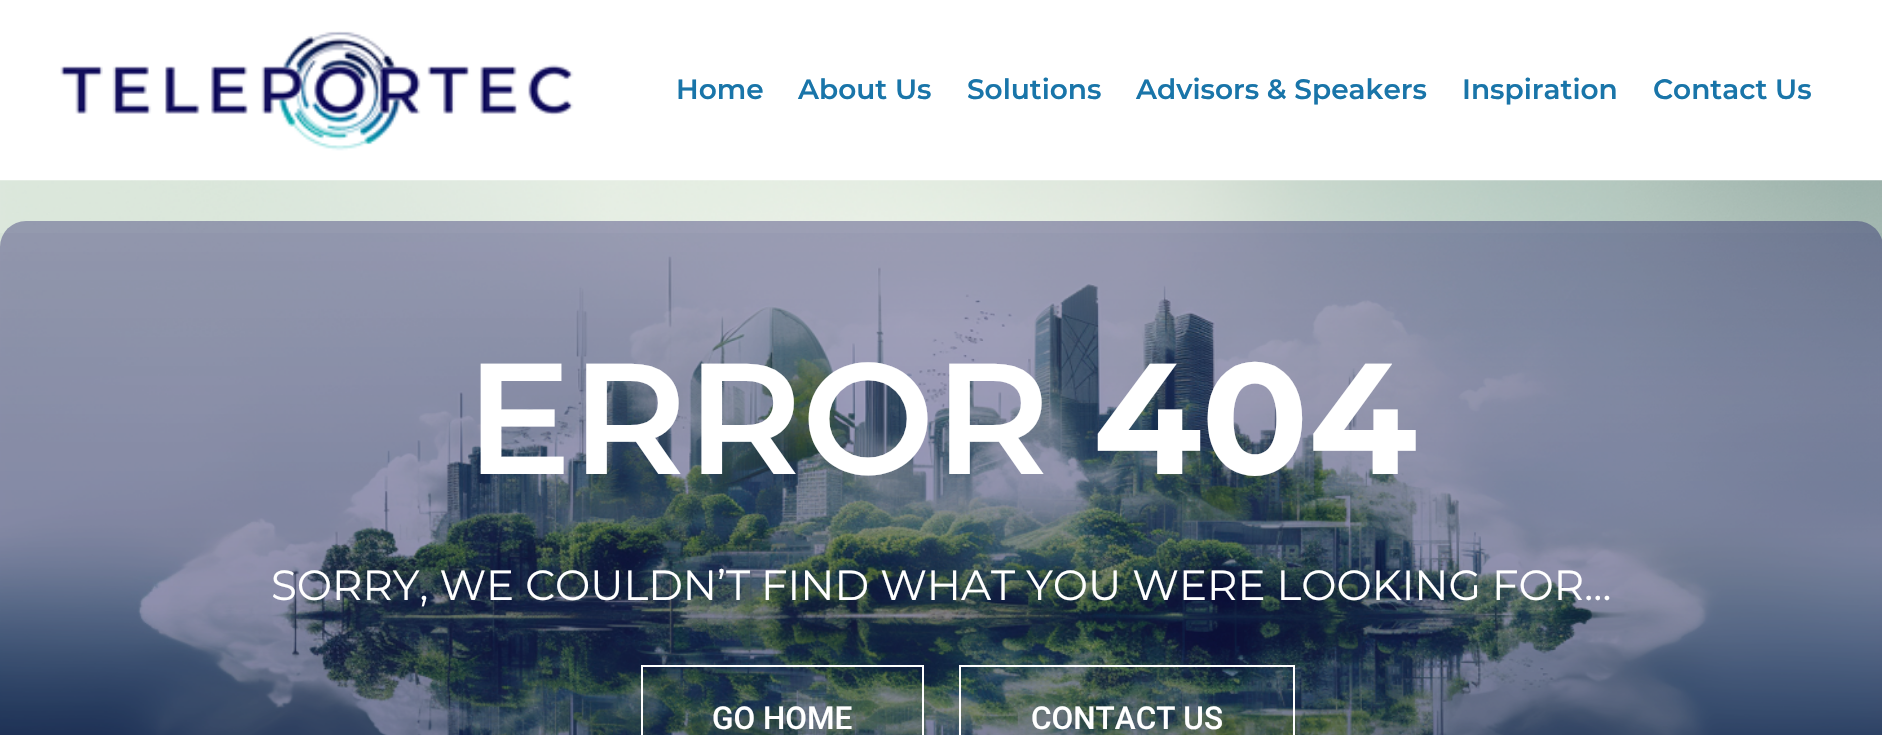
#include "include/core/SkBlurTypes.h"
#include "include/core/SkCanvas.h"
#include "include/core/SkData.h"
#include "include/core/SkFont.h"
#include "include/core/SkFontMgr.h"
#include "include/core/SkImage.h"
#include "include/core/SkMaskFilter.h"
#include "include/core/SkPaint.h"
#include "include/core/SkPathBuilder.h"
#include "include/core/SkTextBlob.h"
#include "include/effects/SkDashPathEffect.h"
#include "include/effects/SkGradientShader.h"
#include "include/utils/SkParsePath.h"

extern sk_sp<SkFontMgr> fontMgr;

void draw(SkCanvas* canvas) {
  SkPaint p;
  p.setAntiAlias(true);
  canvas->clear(SK_ColorWHITE);
  canvas->drawImageRect(SkImages::DeferredFromEncodedData(SkData::MakeFromFileName("images/1.png")), SkRect::MakeLTRB(60, 31, 574, 151), SkSamplingOptions());
  canvas->drawImageRect(SkImages::DeferredFromEncodedData(SkData::MakeFromFileName("images/2.png")), SkRect::MakeLTRB(0, 180, 1882, 735), SkSamplingOptions());
  {
    const SkColor colors[] = {SkColorSetARGB(0, 19, 40, 93), SkColorSetARGB(77, 19, 40, 93)};
    const float stops[] = {0, 1};
    const SkPoint ends[] = {{942, 180}, {942, 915}};
    p.setShader(SkGradientShader::MakeLinear(ends, colors, stops, 2, SkTileMode::kClamp));
    p.setAlpha(255);
  }
  canvas->drawRect(SkRect::MakeLTRB(0, 233, 1882, 735), p);
  p.setShader(nullptr);
  p.setColor(SkColorSetARGB(92, 22, 17, 93));
  canvas->drawRoundRect(SkRect::MakeLTRB(0, 221, 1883, 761), 26, 26, p);
  p.setStyle(SkPaint::kStroke_Style);
  p.setStrokeWidth(2);
  p.setColor(SK_ColorWHITE);
  canvas->drawRect(SkRect::MakeLTRB(642, 666, 923, 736), p);
  canvas->drawRect(SkRect::MakeLTRB(960, 666, 1294, 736), p);
  SkFont font1(fontMgr->matchFamilyStyle("Montserrat", SkFontStyle(600, SkFontStyle::kNormal_Width, SkFontStyle::kUpright_Slant)), 28);
  font1.setSubpixel(true);
  p.setStyle(SkPaint::kFill_Style);
  p.setColor(SkColorSetRGB(25, 117, 169));
  canvas->drawString("Home", 676, 99, font1, p);
  canvas->drawString("About Us", 798, 99, font1, p);
  canvas->drawString("Solutions", 967, 99, font1, p);
  canvas->drawString("Advisors & Speakers", 1136, 99, font1, p);
  canvas->drawString("Inspiration", 1462, 99, font1, p);
  canvas->drawString("Contact Us", 1653, 99, font1, p);
  SkFont font2(fontMgr->matchFamilyStyle("Montserrat", SkFontStyle(600, SkFontStyle::kNormal_Width, SkFontStyle::kUpright_Slant)), 157.5f);
  font2.setSubpixel(true);
  p.setColor(SK_ColorWHITE);
  canvas->drawString("ERROR", 466, 474, font2, p);
  SkFont font3(fontMgr->matchFamilyStyle("Montserrat", SkFontStyle::Bold()), 157.5f);
  font3.setSubpixel(true);
  canvas->drawString("404", 1093, 474, font3, p);
  SkFont font4(fontMgr->matchFamilyStyle("Montserrat", SkFontStyle::Normal()), 42);
  font4.setSubpixel(true);
  canvas->drawString("SORRY, WE COULDN’T FIND WHAT YOU WERE LOOKING FOR…", 271, 600, font4, p);
  SkFont font5(fontMgr->matchFamilyStyle("Roboto", SkFontStyle(500, SkFontStyle::kNormal_Width, SkFontStyle::kUpright_Slant)), 31.5f);
  font5.setSubpixel(true);
  canvas->drawString("GO HOME", 712, 729, font5, p);
  canvas->drawString("CONTACT US", 1031, 729, font5, p);
}
